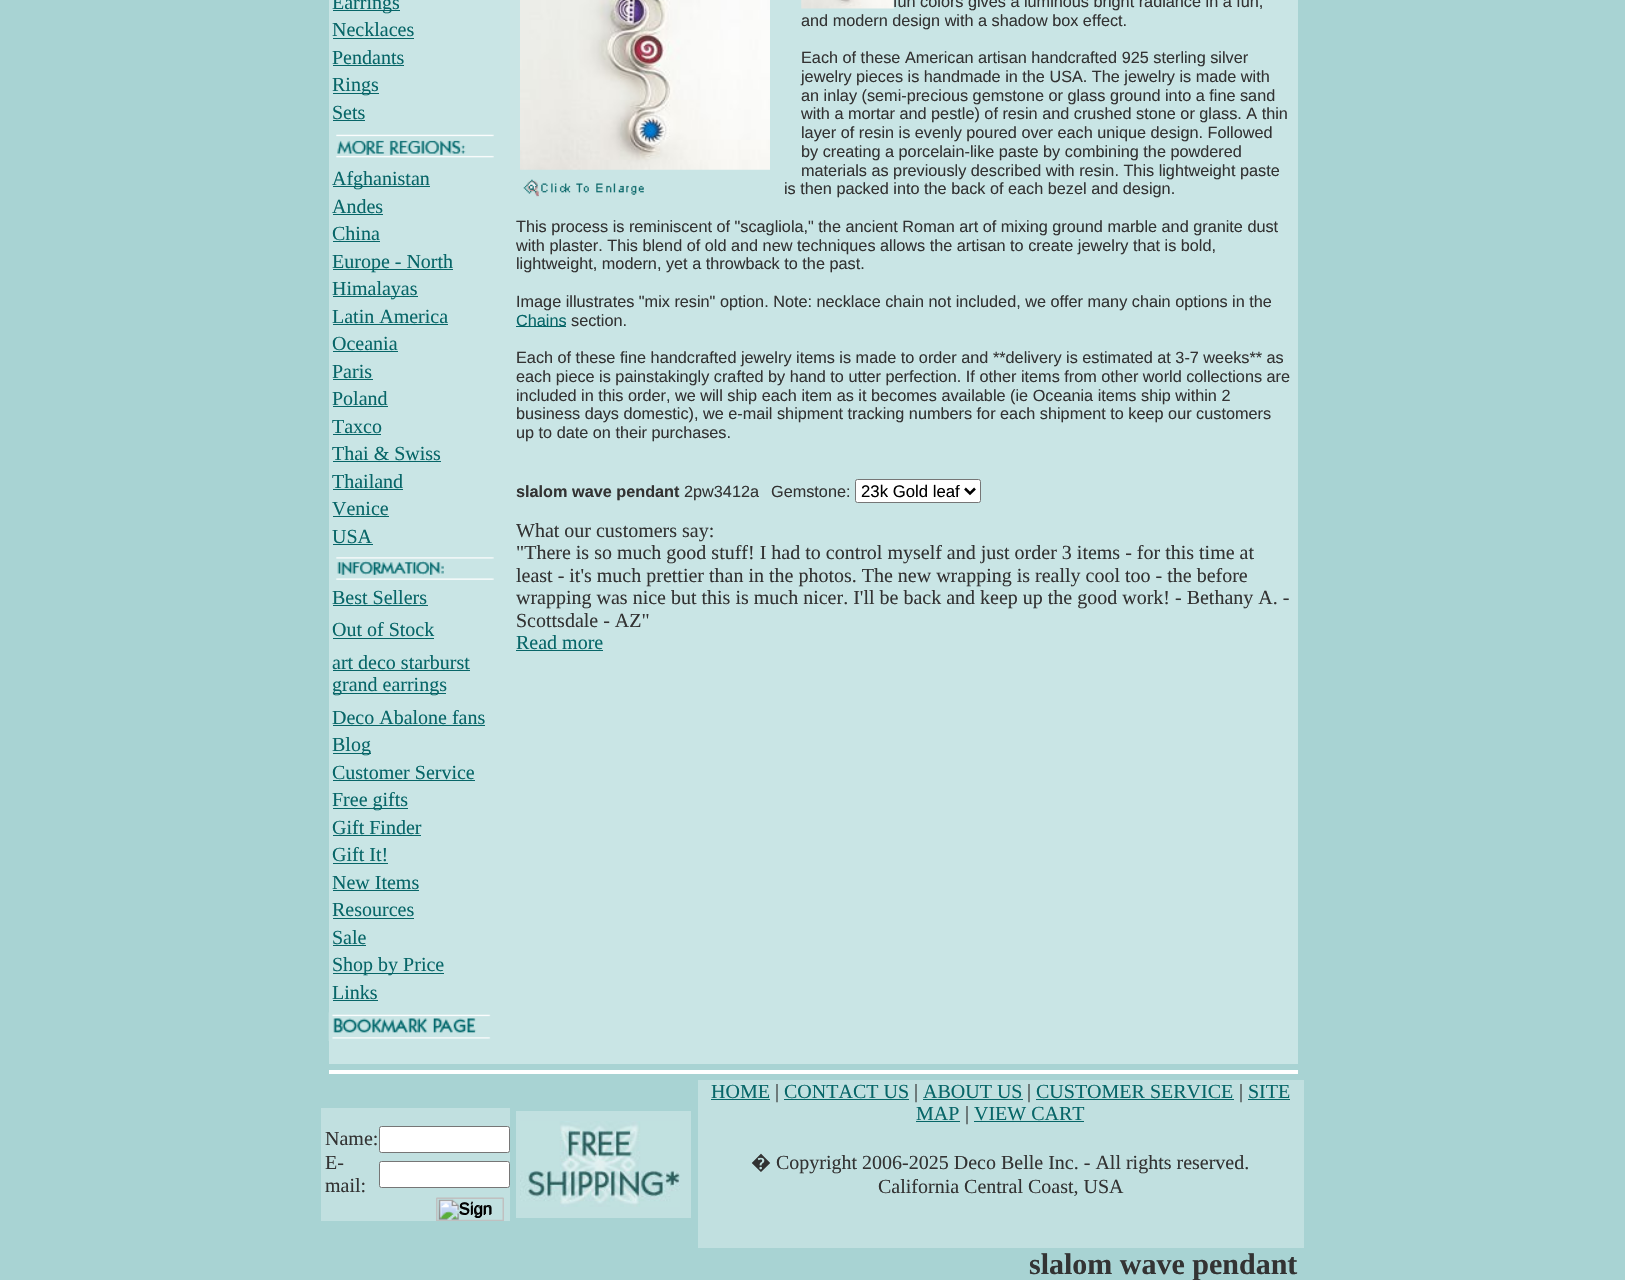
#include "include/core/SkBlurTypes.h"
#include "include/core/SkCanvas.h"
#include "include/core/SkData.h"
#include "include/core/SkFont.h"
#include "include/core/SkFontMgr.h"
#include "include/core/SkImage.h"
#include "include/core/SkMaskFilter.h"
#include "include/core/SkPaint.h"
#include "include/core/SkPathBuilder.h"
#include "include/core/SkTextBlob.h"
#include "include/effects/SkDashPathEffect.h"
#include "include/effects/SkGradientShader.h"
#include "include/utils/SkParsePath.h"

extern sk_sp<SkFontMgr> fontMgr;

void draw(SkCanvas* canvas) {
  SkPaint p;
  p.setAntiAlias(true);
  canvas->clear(SkColorSetRGB(168, 211, 211));
  p.setColor(SkColorSetRGB(201, 229, 229));
  canvas->drawRect(SkRect::MakeLTRB(329, 0, 1298, 1064), p);
  p.setColor(SkColorSetRGB(7, 102, 104));
  canvas->drawRect(SkRect::MakeLTRB(333, 10, 400, 11), p);
  canvas->drawRect(SkRect::MakeLTRB(333, 38, 414, 39), p);
  canvas->drawRect(SkRect::MakeLTRB(333, 65, 404, 66), p);
  canvas->drawRect(SkRect::MakeLTRB(333, 93, 379, 94), p);
  canvas->drawRect(SkRect::MakeLTRB(333, 120, 365, 121), p);
  canvas->drawImageRect(SkImages::DeferredFromEncodedData(SkData::MakeFromFileName("images/1.png")), SkRect::MakeLTRB(336, 134, 494, 158), SkSamplingOptions());
  canvas->drawRect(SkRect::MakeLTRB(333, 186, 430, 187), p);
  canvas->drawRect(SkRect::MakeLTRB(333, 214, 383, 215), p);
  canvas->drawRect(SkRect::MakeLTRB(333, 241, 380, 242), p);
  canvas->drawRect(SkRect::MakeLTRB(333, 269, 453, 270), p);
  canvas->drawRect(SkRect::MakeLTRB(333, 296, 418, 297), p);
  canvas->drawRect(SkRect::MakeLTRB(333, 324, 448, 325), p);
  canvas->drawRect(SkRect::MakeLTRB(333, 351, 398, 352), p);
  canvas->drawRect(SkRect::MakeLTRB(333, 379, 373, 380), p);
  canvas->drawRect(SkRect::MakeLTRB(333, 406, 388, 407), p);
  canvas->drawRect(SkRect::MakeLTRB(333, 434, 381, 435), p);
  canvas->drawRect(SkRect::MakeLTRB(333, 461, 441, 462), p);
  canvas->drawRect(SkRect::MakeLTRB(333, 489, 403, 490), p);
  canvas->drawRect(SkRect::MakeLTRB(333, 516, 389, 517), p);
  canvas->drawRect(SkRect::MakeLTRB(333, 544, 373, 545), p);
  canvas->drawImageRect(SkImages::DeferredFromEncodedData(SkData::MakeFromFileName("images/2.png")), SkRect::MakeLTRB(336, 557, 494, 580), SkSamplingOptions());
  canvas->drawRect(SkRect::MakeLTRB(333, 605, 428, 606), p);
  canvas->drawRect(SkRect::MakeLTRB(333, 638, 434, 639), p);
  canvas->drawRect(SkRect::MakeLTRB(333, 670, 470, 671), p);
  canvas->drawRect(SkRect::MakeLTRB(333, 693, 446, 694), p);
  canvas->drawRect(SkRect::MakeLTRB(333, 725, 485, 726), p);
  canvas->drawRect(SkRect::MakeLTRB(333, 753, 371, 754), p);
  canvas->drawRect(SkRect::MakeLTRB(333, 780, 475, 781), p);
  canvas->drawRect(SkRect::MakeLTRB(333, 808, 408, 809), p);
  canvas->drawRect(SkRect::MakeLTRB(333, 835, 421, 836), p);
  canvas->drawRect(SkRect::MakeLTRB(333, 863, 388, 864), p);
  canvas->drawRect(SkRect::MakeLTRB(333, 890, 419, 891), p);
  canvas->drawRect(SkRect::MakeLTRB(333, 918, 414, 919), p);
  canvas->drawRect(SkRect::MakeLTRB(333, 945, 366, 946), p);
  canvas->drawRect(SkRect::MakeLTRB(333, 973, 444, 974), p);
  canvas->drawRect(SkRect::MakeLTRB(333, 1000, 378, 1001), p);
  canvas->drawImageRect(SkImages::DeferredFromEncodedData(SkData::MakeFromFileName("images/3.png")), SkRect::MakeLTRB(328, 1012, 491, 1041), SkSamplingOptions());
  canvas->drawImageRect(SkImages::DeferredFromEncodedData(SkData::MakeFromFileName("images/4.png")), SkRect::MakeLTRB(801, 0, 894, 9), SkSamplingOptions());
  canvas->drawRect(SkRect::MakeLTRB(516, 326, 566, 327), p);
  p.setColor(SK_ColorWHITE);
  canvas->drawRoundRect(SkRect::MakeLTRB(855.5f, 479.5f, 980.5f, 502.5f), 2, 2, p);
  p.setStyle(SkPaint::kStroke_Style);
  p.setStrokeWidth(1);
  p.setColor(SkColorSetRGB(118, 118, 118));
  canvas->drawRoundRect(SkRect::MakeLTRB(855.5f, 479.5f, 980.5f, 502.5f), 2, 2, p);
  p.setStrokeWidth(2.5f);
  p.setColor(SK_ColorBLACK);
  canvas->drawPath(SkPathBuilder().moveTo(965, 488.5f).lineTo(970, 493.5f).lineTo(975, 488.5f).detach(), p);
  canvas->drawImageRect(SkImages::DeferredFromEncodedData(SkData::MakeFromFileName("images/5.png")), SkRect::MakeLTRB(520, 0, 770, 170), SkSamplingOptions());
  canvas->drawImageRect(SkImages::DeferredFromEncodedData(SkData::MakeFromFileName("images/6.png")), SkRect::MakeLTRB(523, 179, 644, 197), SkSamplingOptions());
  p.setStyle(SkPaint::kFill_Style);
  p.setColor(SkColorSetRGB(7, 102, 104));
  canvas->drawRect(SkRect::MakeLTRB(516, 650, 603, 651), p);
  p.setColor(SK_ColorWHITE);
  canvas->drawRect(SkRect::MakeLTRB(329, 1070, 1298, 1074), p);
  p.setColor(SkColorSetRGB(193, 224, 224));
  canvas->drawRect(SkRect::MakeLTRB(321, 1108, 510, 1126), p);
  canvas->drawRect(SkRect::MakeLTRB(321, 1126, 510, 1153), p);
  p.setColor(SK_ColorWHITE);
  canvas->drawRoundRect(SkRect::MakeLTRB(379.5f, 1126.5f, 509.5f, 1152.5f), 2, 2, p);
  p.setStyle(SkPaint::kStroke_Style);
  p.setStrokeWidth(1);
  p.setColor(SkColorSetRGB(118, 118, 118));
  canvas->drawRoundRect(SkRect::MakeLTRB(379.5f, 1126.5f, 509.5f, 1152.5f), 2, 2, p);
  p.setStyle(SkPaint::kFill_Style);
  p.setColor(SkColorSetRGB(193, 224, 224));
  canvas->drawRect(SkRect::MakeLTRB(321, 1153, 510, 1221), p);
  p.setColor(SK_ColorWHITE);
  canvas->drawRoundRect(SkRect::MakeLTRB(379.5f, 1161.5f, 509.5f, 1187.5f), 2, 2, p);
  p.setStyle(SkPaint::kStroke_Style);
  p.setColor(SkColorSetRGB(118, 118, 118));
  canvas->drawRoundRect(SkRect::MakeLTRB(379.5f, 1161.5f, 509.5f, 1187.5f), 2, 2, p);
  canvas->drawImageRect(SkImages::DeferredFromEncodedData(SkData::MakeFromFileName("images/7.png")), SkRect::MakeLTRB(436, 1197, 504, 1220), SkSamplingOptions());
  p.setColor(SkColorSetRGB(192, 192, 192));
  canvas->drawRect(SkRect::MakeLTRB(436.5f, 1198.5f, 503.5f, 1220.5f), p);
  p.setStyle(SkPaint::kFill_Style);
  p.setColor(SkColorSetRGB(193, 224, 224));
  canvas->drawRect(SkRect::MakeLTRB(516, 1111, 691, 1218), p);
  canvas->drawImageRect(SkImages::DeferredFromEncodedData(SkData::MakeFromFileName("images/8.png")), SkRect::MakeLTRB(520, 1121, 680, 1207), SkSamplingOptions());
  canvas->drawRect(SkRect::MakeLTRB(698, 1080, 1304, 1248), p);
  p.setColor(SkColorSetRGB(7, 102, 104));
  canvas->drawRect(SkRect::MakeLTRB(711, 1099, 770, 1100), p);
  canvas->drawRect(SkRect::MakeLTRB(784, 1099, 909, 1100), p);
  canvas->drawRect(SkRect::MakeLTRB(923, 1099, 1023, 1100), p);
  canvas->drawRect(SkRect::MakeLTRB(1036, 1099, 1234, 1100), p);
  canvas->drawRect(SkRect::MakeLTRB(1248, 1099, 1290, 1100), p);
  canvas->drawRect(SkRect::MakeLTRB(916, 1121, 960, 1122), p);
  canvas->drawRect(SkRect::MakeLTRB(974, 1121, 1084, 1122), p);
  SkFont font1(fontMgr->matchFamilyStyle("Liberation Serif", SkFontStyle::Normal()), 20);
  font1.setSubpixel(true);
  canvas->drawString("Earrings", 332, 9, font1, p);
  canvas->drawString("Necklaces", 332, 36, font1, p);
  canvas->drawString("Pendants", 332, 64, font1, p);
  canvas->drawString("Rings", 332, 91, font1, p);
  canvas->drawString("Sets", 332, 119, font1, p);
  canvas->drawString("Afghanistan", 332, 185, font1, p);
  canvas->drawString("Andes", 332, 213, font1, p);
  canvas->drawString("China", 332, 240, font1, p);
  canvas->drawString("Europe - North", 332, 268, font1, p);
  canvas->drawString("Himalayas", 332, 295, font1, p);
  canvas->drawString("Latin America", 332, 323, font1, p);
  canvas->drawString("Oceania", 332, 350, font1, p);
  canvas->drawString("Paris", 332, 378, font1, p);
  canvas->drawString("Poland", 332, 405, font1, p);
  canvas->drawString("Taxco", 332, 433, font1, p);
  canvas->drawString("Thai & Swiss", 332, 460, font1, p);
  canvas->drawString("Thailand", 332, 488, font1, p);
  canvas->drawString("Venice", 332, 515, font1, p);
  canvas->drawString("USA", 332, 543, font1, p);
  canvas->drawString("Best Sellers", 332, 604, font1, p);
  canvas->drawString("Out of Stock", 332, 636, font1, p);
  canvas->drawString("art deco starburst", 332, 669, font1, p);
  canvas->drawString("grand earrings", 332, 691, font1, p);
  canvas->drawString("Deco Abalone fans", 332, 724, font1, p);
  canvas->drawString("Blog", 332, 751, font1, p);
  canvas->drawString("Customer Service", 332, 779, font1, p);
  canvas->drawString("Free gifts", 332, 806, font1, p);
  canvas->drawString("Gift Finder", 332, 834, font1, p);
  canvas->drawString("Gift It!", 332, 861, font1, p);
  canvas->drawString("New Items", 332, 889, font1, p);
  canvas->drawString("Resources", 332, 916, font1, p);
  canvas->drawString("Sale", 332, 944, font1, p);
  canvas->drawString("Shop by Price", 332, 971, font1, p);
  canvas->drawString("Links", 332, 999, font1, p);
  SkFont font2(fontMgr->matchFamilyStyle("Liberation Sans", SkFontStyle::Normal()), 16.25f);
  font2.setSubpixel(true);
  p.setColor(SkColorSetRGB(51, 51, 51));
  canvas->drawString("fun colors gives a luminous bright radiance in a fun,", 893, 7, font2, p);
  canvas->drawString("and modern design with a shadow box effect.", 801, 26, font2, p);
  canvas->drawString("Each of these American artisan handcrafted 925 sterling silver", 801, 63, font2, p);
  canvas->drawString("jewelry pieces is handmade in the USA. The jewelry is made with", 801, 82, font2, p);
  canvas->drawString("an inlay (semi-precious gemstone or glass ground into a fine sand", 801, 101, font2, p);
  canvas->drawString("with a mortar and pestle) of resin and crushed stone or glass. A thin", 801, 119, font2, p);
  canvas->drawString("layer of resin is evenly poured over each unique design. Followed", 801, 138, font2, p);
  canvas->drawString("by creating a porcelain-like paste by combining the powdered", 801, 157, font2, p);
  canvas->drawString("materials as previously described with resin. This lightweight paste", 801, 176, font2, p);
  canvas->drawString("is then packed into the back of each bezel and design.", 784, 194, font2, p);
  canvas->drawString("This process is reminiscent of \"scagliola,\" the ancient Roman art of mixing ground marble and granite dust", 516, 232, font2, p);
  canvas->drawString("with plaster. This blend of old and new techniques allows the artisan to create jewelry that is bold,", 516, 251, font2, p);
  canvas->drawString("lightweight, modern, yet a throwback to the past.", 516, 269, font2, p);
  canvas->drawString("Image illustrates \"mix resin\" option. Note: necklace chain not included, we offer many chain options in the", 516, 307, font2, p);
  p.setColor(SkColorSetRGB(7, 102, 104));
  canvas->drawString("Chains", 516, 326, font2, p);
  p.setColor(SkColorSetRGB(51, 51, 51));
  canvas->drawString("section.", 571, 326, font2, p);
  canvas->drawString("Each of these fine handcrafted jewelry items is made to order and **delivery is estimated at 3-7 weeks** as", 516, 363, font2, p);
  canvas->drawString("each piece is painstakingly crafted by hand to utter perfection. If other items from other world collections are", 516, 382, font2, p);
  canvas->drawString("included in this order, we will ship each item as it becomes available (ie Oceania items ship within 2", 516, 401, font2, p);
  canvas->drawString("business days domestic), we e-mail shipment tracking numbers for each shipment to keep our customers", 516, 419, font2, p);
  canvas->drawString("up to date on their purchases.", 516, 438, font2, p);
  SkFont font3(fontMgr->matchFamilyStyle("Liberation Sans", SkFontStyle::Bold()), 16.25f);
  font3.setSubpixel(true);
  canvas->drawString("slalom wave pendant", 516, 497, font3, p);
  canvas->drawString("2pw3412a", 684, 497, font2, p);
  canvas->drawString("Gemstone:", 771, 497, font2, p);
  SkFont font4(fontMgr->matchFamilyStyle("Liberation Sans", SkFontStyle::Normal()), 16.75f);
  font4.setSubpixel(true);
  p.setColor(SK_ColorBLACK);
  canvas->drawString("23k Gold leaf", 861, 497, font4, p);
  p.setColor(SkColorSetRGB(51, 51, 51));
  canvas->drawString("What our customers say:", 516, 537, font1, p);
  canvas->drawString("\"There is so much good stuff! I had to control myself and just order 3 items - for this time at", 516, 559, font1, p);
  canvas->drawString("least - it's much prettier than in the photos. The new wrapping is really cool too - the before", 516, 582, font1, p);
  canvas->drawString("wrapping was nice but this is much nicer. I'll be back and keep up the good work! - Bethany A. -", 516, 604, font1, p);
  canvas->drawString("Scottsdale - AZ\"", 516, 627, font1, p);
  p.setColor(SkColorSetRGB(7, 102, 104));
  canvas->drawString("Read more", 516, 649, font1, p);
  p.setColor(SkColorSetRGB(51, 51, 51));
  canvas->drawString("Name:", 325, 1145, font1, p);
  canvas->drawString("E-", 325, 1169, font1, p);
  canvas->drawString("mail:", 325, 1192, font1, p);
  p.setColor(SK_ColorBLACK);
  canvas->drawString("Sign", 459, 1214, font4, p);
  p.setColor(SkColorSetRGB(7, 102, 104));
  canvas->drawString("HOME", 711, 1098, font1, p);
  p.setColor(SkColorSetRGB(51, 51, 51));
  canvas->drawString("|", 775, 1098, font1, p);
  p.setColor(SkColorSetRGB(7, 102, 104));
  canvas->drawString("CONTACT US", 784, 1098, font1, p);
  p.setColor(SkColorSetRGB(51, 51, 51));
  canvas->drawString("|", 914, 1098, font1, p);
  p.setColor(SkColorSetRGB(7, 102, 104));
  canvas->drawString("ABOUT US", 923, 1098, font1, p);
  p.setColor(SkColorSetRGB(51, 51, 51));
  canvas->drawString("|", 1027, 1098, font1, p);
  p.setColor(SkColorSetRGB(7, 102, 104));
  canvas->drawString("CUSTOMER SERVICE", 1036, 1098, font1, p);
  p.setColor(SkColorSetRGB(51, 51, 51));
  canvas->drawString("|", 1239, 1098, font1, p);
  p.setColor(SkColorSetRGB(7, 102, 104));
  canvas->drawString("SITE", 1248, 1098, font1, p);
  canvas->drawString("MAP", 916, 1120, font1, p);
  p.setColor(SkColorSetRGB(51, 51, 51));
  canvas->drawString("|", 965, 1120, font1, p);
  p.setColor(SkColorSetRGB(7, 102, 104));
  canvas->drawString("VIEW CART", 974, 1120, font1, p);
  SkFont font5(fontMgr->matchFamilyStyle("Noto Sans", SkFontStyle::Normal()), 20);
  font5.setSubpixel(true);
  p.setColor(SkColorSetRGB(51, 51, 51));
  canvas->drawString("�", 751, 1169, font5, p);
  canvas->drawString("Copyright 2006-2025 Deco Belle Inc. - All rights reserved.", 776, 1169, font1, p);
  canvas->drawString("California Central Coast, USA", 878, 1193, font1, p);
  SkFont font6(fontMgr->matchFamilyStyle("Liberation Serif", SkFontStyle::Bold()), 30);
  font6.setSubpixel(true);
  canvas->drawString("slalom wave pendant", 1029, 1274, font6, p);
}
